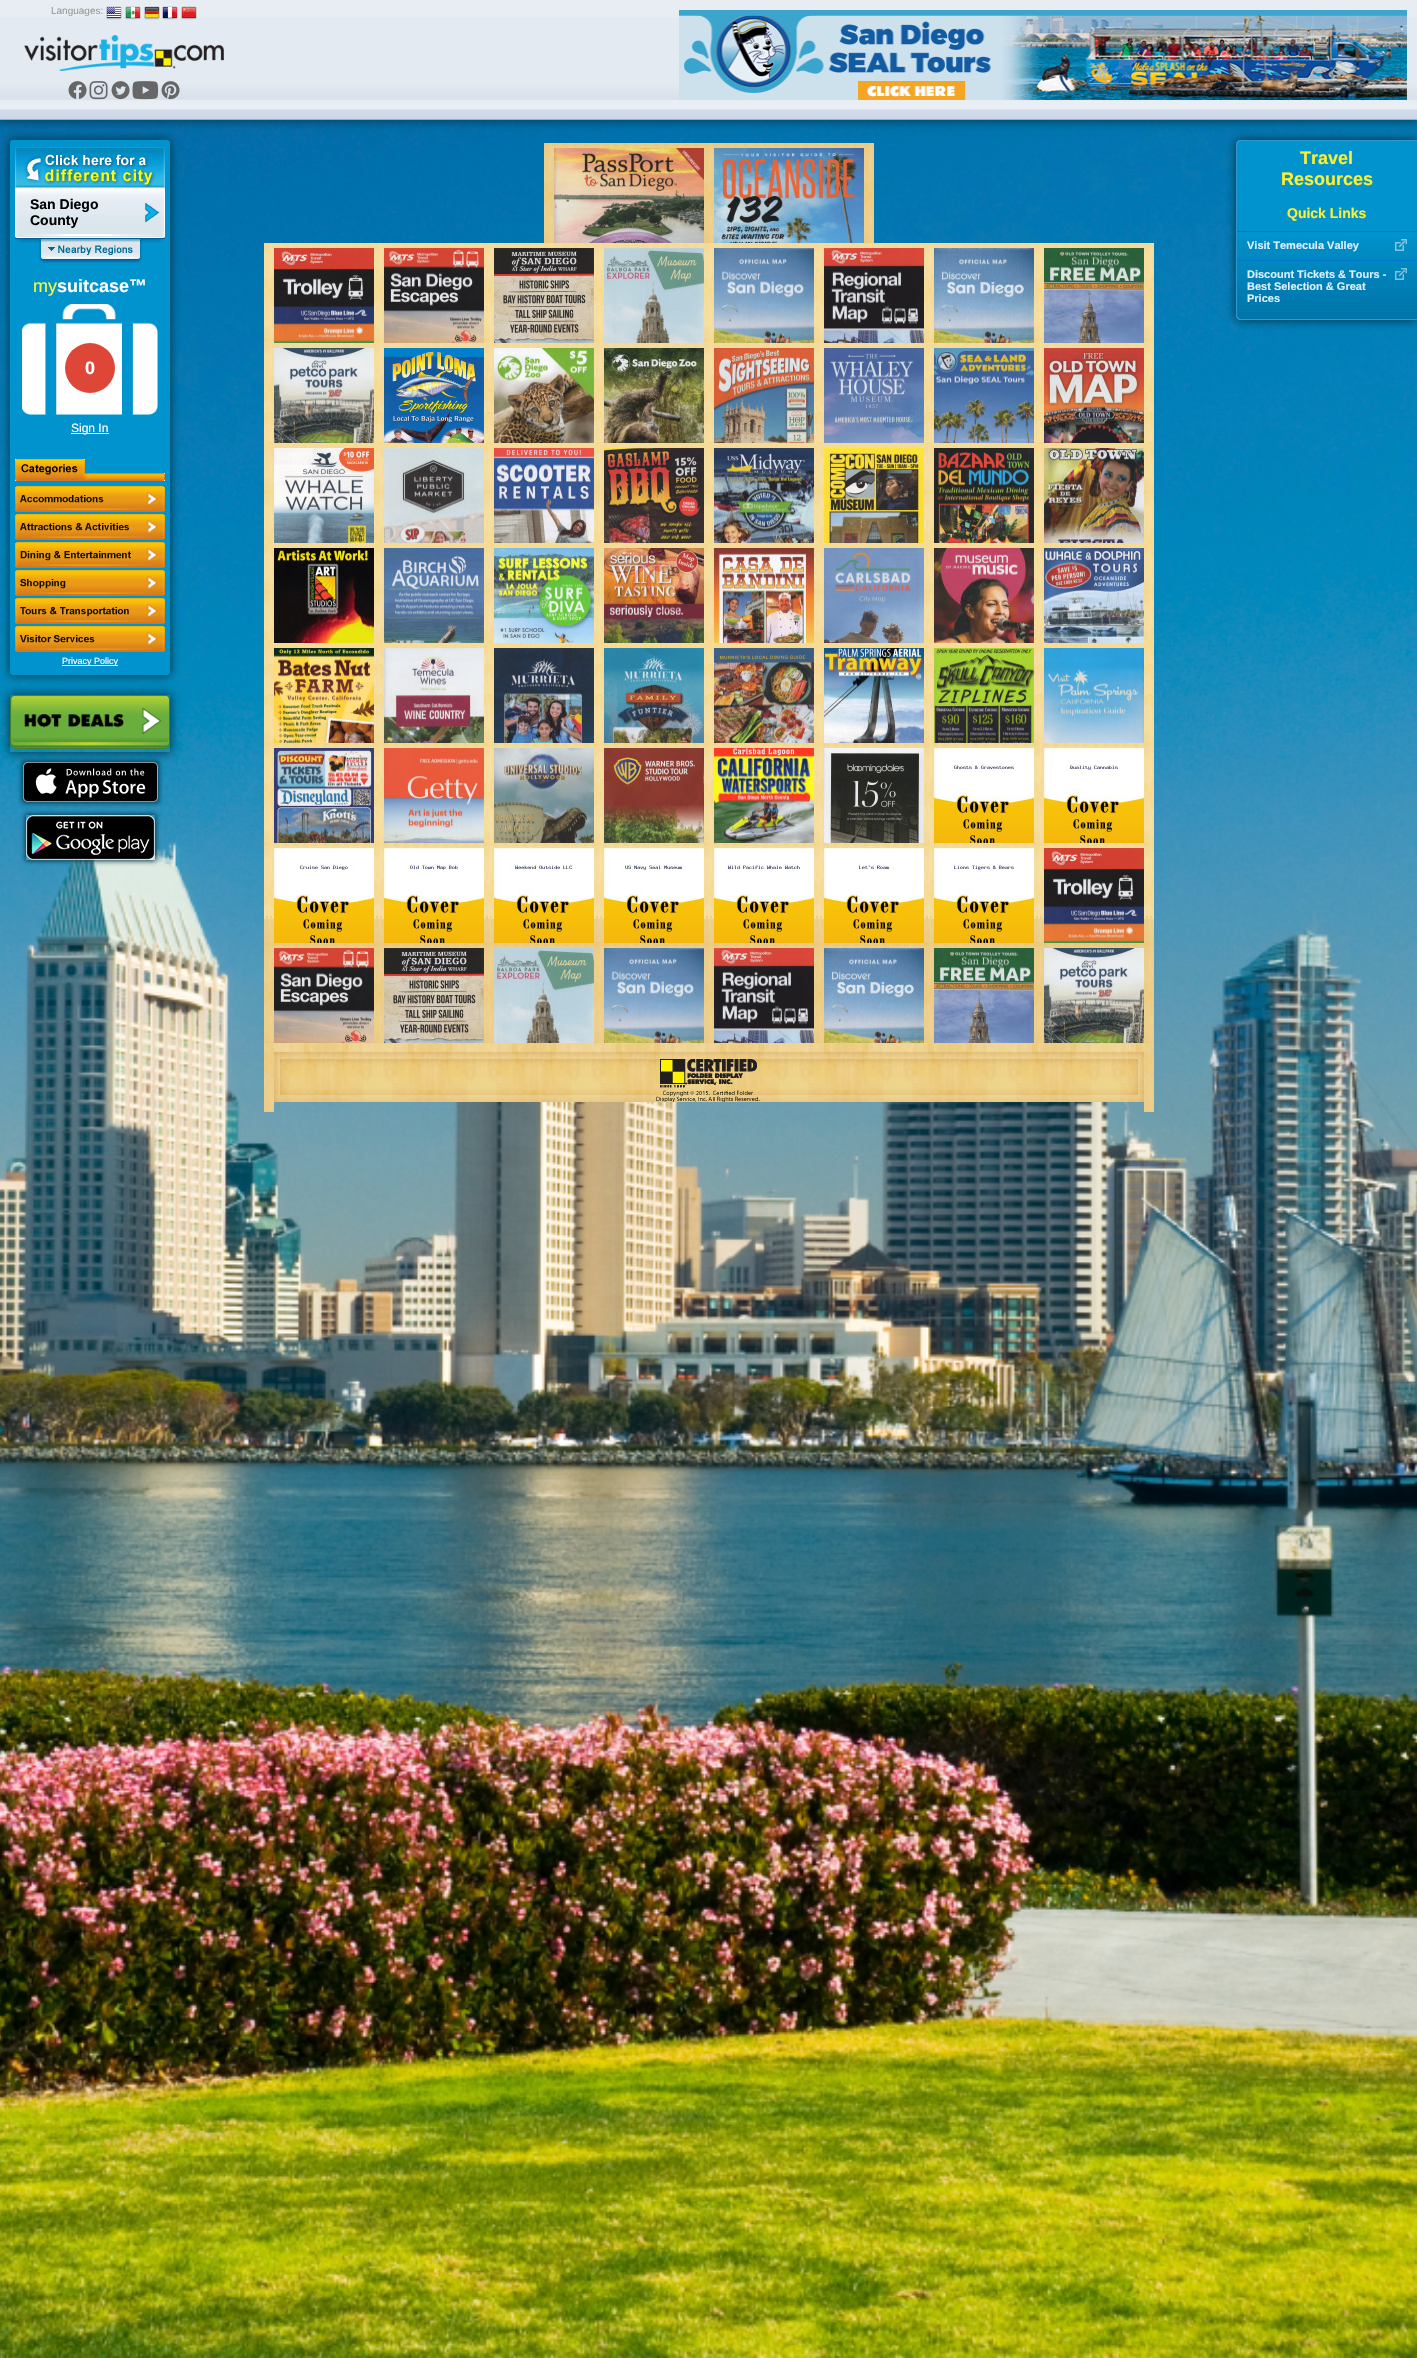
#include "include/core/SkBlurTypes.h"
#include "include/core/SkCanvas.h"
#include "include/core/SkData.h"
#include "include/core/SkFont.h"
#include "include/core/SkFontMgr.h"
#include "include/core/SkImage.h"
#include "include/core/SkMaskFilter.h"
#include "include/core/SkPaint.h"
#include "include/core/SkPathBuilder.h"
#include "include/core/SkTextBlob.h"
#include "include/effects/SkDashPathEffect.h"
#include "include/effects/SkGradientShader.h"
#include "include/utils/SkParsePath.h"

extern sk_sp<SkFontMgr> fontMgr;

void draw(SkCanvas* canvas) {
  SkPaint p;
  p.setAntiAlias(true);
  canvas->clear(SK_ColorWHITE);
  canvas->drawImageRect(SkImages::DeferredFromEncodedData(SkData::MakeFromFileName("images/14.png")), SkRect::MakeLTRB(0, 120, 1417, 2358), SkSamplingOptions());
  p.setColor(SkColorSetRGB(0, 60, 80));
  p.setMaskFilter(SkMaskFilter::MakeBlur(kNormal_SkBlurStyle, 5));
  canvas->drawRect(SkRect::MakeLTRB(-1, -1, 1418, 121), p);
  p.setMaskFilter(nullptr);
  p.setColor(SkColorSetRGB(232, 237, 243));
  canvas->drawRect(SkRect::MakeLTRB(0, 0, 1417, 17), p);
  canvas->drawImageRect(SkImages::DeferredFromEncodedData(SkData::MakeFromFileName("images/1.png")), SkRect::MakeLTRB(0, 17, 1417, 120), SkSamplingOptions());
  canvas->drawImageRect(SkImages::DeferredFromEncodedData(SkData::MakeFromFileName("images/2.png")), SkRect::MakeLTRB(106, 6, 122, 20), SkSamplingOptions());
  canvas->drawImageRect(SkImages::DeferredFromEncodedData(SkData::MakeFromFileName("images/3.png")), SkRect::MakeLTRB(125, 6, 141, 20), SkSamplingOptions());
  canvas->drawImageRect(SkImages::DeferredFromEncodedData(SkData::MakeFromFileName("images/4.png")), SkRect::MakeLTRB(144, 6, 160, 20), SkSamplingOptions());
  canvas->drawImageRect(SkImages::DeferredFromEncodedData(SkData::MakeFromFileName("images/5.png")), SkRect::MakeLTRB(162, 6, 178, 20), SkSamplingOptions());
  canvas->drawImageRect(SkImages::DeferredFromEncodedData(SkData::MakeFromFileName("images/6.png")), SkRect::MakeLTRB(181, 6, 197, 20), SkSamplingOptions());
  canvas->drawImageRect(SkImages::DeferredFromEncodedData(SkData::MakeFromFileName("images/7.png")), SkRect::MakeLTRB(679, 10, 1407, 100), SkSamplingOptions());
  canvas->drawImageRect(SkImages::DeferredFromEncodedData(SkData::MakeFromFileName("images/8.png")), SkRect::MakeLTRB(24, 35, 224, 71), SkSamplingOptions());
  canvas->drawImageRect(SkImages::DeferredFromEncodedData(SkData::MakeFromFileName("images/9.png")), SkRect::MakeLTRB(68, 81, 87, 99), SkSamplingOptions());
  canvas->drawImageRect(SkImages::DeferredFromEncodedData(SkData::MakeFromFileName("images/10.png")), SkRect::MakeLTRB(89, 81, 108, 100), SkSamplingOptions());
  canvas->drawImageRect(SkImages::DeferredFromEncodedData(SkData::MakeFromFileName("images/11.png")), SkRect::MakeLTRB(111, 81, 130, 100), SkSamplingOptions());
  canvas->drawImageRect(SkImages::DeferredFromEncodedData(SkData::MakeFromFileName("images/12.png")), SkRect::MakeLTRB(132, 81, 159, 100), SkSamplingOptions());
  canvas->drawImageRect(SkImages::DeferredFromEncodedData(SkData::MakeFromFileName("images/13.png")), SkRect::MakeLTRB(161, 81, 180, 100), SkSamplingOptions());
  p.setColor(SkColorSetRGB(0, 60, 80));
  p.setMaskFilter(SkMaskFilter::MakeBlur(kNormal_SkBlurStyle, 5));
  canvas->drawRoundRect(SkRect::MakeLTRB(9, 139, 171, 676), 4, 4, p);
  p.setMaskFilter(nullptr);
  p.setColor(SkColorSetRGB(1, 147, 206));
  canvas->drawRoundRect(SkRect::MakeLTRB(11, 141, 169, 674), 2, 2, p);
  p.setStyle(SkPaint::kStroke_Style);
  p.setStrokeWidth(2);
  canvas->drawRoundRect(SkRect::MakeLTRB(11, 141, 169, 674), 2, 2, p);
  canvas->drawImageRect(SkImages::DeferredFromEncodedData(SkData::MakeFromFileName("images/15.png")), SkRect::MakeLTRB(15, 233, 165, 238), SkSamplingOptions());
  canvas->drawImageRect(SkImages::DeferredFromEncodedData(SkData::MakeFromFileName("images/16.png")), SkRect::MakeLTRB(15, 147, 165, 233), SkSamplingOptions());
  canvas->drawImageRect(SkImages::DeferredFromEncodedData(SkData::MakeFromFileName("images/17.png")), SkRect::MakeLTRB(145, 202, 160, 223), SkSamplingOptions());
  canvas->drawImageRect(SkImages::DeferredFromEncodedData(SkData::MakeFromFileName("images/18.png")), SkRect::MakeLTRB(17, 239, 165, 243), SkSamplingOptions());
  p.setStyle(SkPaint::kFill_Style);
  p.setColor(SkColorSetRGB(0, 94, 151));
  canvas->drawRect(SkRect::MakeLTRB(15, 238, 165, 239), p);
  canvas->drawImageRect(SkImages::DeferredFromEncodedData(SkData::MakeFromFileName("images/19.png")), SkRect::MakeLTRB(39, 239, 142, 263), SkSamplingOptions());
  canvas->drawImageRect(SkImages::DeferredFromEncodedData(SkData::MakeFromFileName("images/20.png")), SkRect::MakeLTRB(22, 304, 158, 415), SkSamplingOptions());
  p.setColor(SkColorSetRGB(222, 71, 56));
  canvas->drawCircle(90, 368, 25, p);
  p.setColor(SK_ColorWHITE);
  canvas->drawRect(SkRect::MakeLTRB(71, 433, 109, 434), p);
  canvas->drawImageRect(SkImages::DeferredFromEncodedData(SkData::MakeFromFileName("images/21.png")), SkRect::MakeLTRB(15, 459, 165, 481), SkSamplingOptions());
  canvas->drawImageRect(SkImages::DeferredFromEncodedData(SkData::MakeFromFileName("images/22.png")), SkRect::MakeLTRB(15, 486, 165, 512), SkSamplingOptions());
  canvas->drawImageRect(SkImages::DeferredFromEncodedData(SkData::MakeFromFileName("images/23.png")), SkRect::MakeLTRB(20, 495, 104, 503), SkSamplingOptions());
  canvas->drawImageRect(SkImages::DeferredFromEncodedData(SkData::MakeFromFileName("images/22.png")), SkRect::MakeLTRB(15, 514, 165, 540), SkSamplingOptions());
  canvas->drawImageRect(SkImages::DeferredFromEncodedData(SkData::MakeFromFileName("images/24.png")), SkRect::MakeLTRB(20, 523, 129, 531), SkSamplingOptions());
  canvas->drawImageRect(SkImages::DeferredFromEncodedData(SkData::MakeFromFileName("images/22.png")), SkRect::MakeLTRB(15, 542, 165, 568), SkSamplingOptions());
  canvas->drawImageRect(SkImages::DeferredFromEncodedData(SkData::MakeFromFileName("images/25.png")), SkRect::MakeLTRB(20, 551, 131, 561), SkSamplingOptions());
  canvas->drawImageRect(SkImages::DeferredFromEncodedData(SkData::MakeFromFileName("images/22.png")), SkRect::MakeLTRB(15, 570, 165, 596), SkSamplingOptions());
  canvas->drawImageRect(SkImages::DeferredFromEncodedData(SkData::MakeFromFileName("images/26.png")), SkRect::MakeLTRB(20, 579, 66, 589), SkSamplingOptions());
  canvas->drawImageRect(SkImages::DeferredFromEncodedData(SkData::MakeFromFileName("images/22.png")), SkRect::MakeLTRB(15, 598, 165, 624), SkSamplingOptions());
  canvas->drawImageRect(SkImages::DeferredFromEncodedData(SkData::MakeFromFileName("images/27.png")), SkRect::MakeLTRB(20, 607, 129, 617), SkSamplingOptions());
  canvas->drawImageRect(SkImages::DeferredFromEncodedData(SkData::MakeFromFileName("images/22.png")), SkRect::MakeLTRB(15, 626, 165, 652), SkSamplingOptions());
  canvas->drawImageRect(SkImages::DeferredFromEncodedData(SkData::MakeFromFileName("images/28.png")), SkRect::MakeLTRB(20, 635, 95, 643), SkSamplingOptions());
  canvas->drawRect(SkRect::MakeLTRB(62, 665, 118, 666), p);
  canvas->save();
  canvas->clipPath(SkPathBuilder(SkPathFillType::kEvenOdd).moveTo(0, 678).lineTo(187, 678).lineTo(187, 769).lineTo(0, 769).close().moveTo(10, 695).lineTo(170, 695).lineTo(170, 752).lineTo(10, 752).close().detach(), true);
  p.setColor(SkColorSetRGB(0, 60, 80));
  p.setMaskFilter(SkMaskFilter::MakeBlur(kNormal_SkBlurStyle, 5));
  canvas->drawRect(SkRect::MakeLTRB(9, 694, 171, 753), p);
  p.setMaskFilter(nullptr);
  canvas->restore();
  canvas->drawImageRect(SkImages::DeferredFromEncodedData(SkData::MakeFromFileName("images/29.png")), SkRect::MakeLTRB(10, 695, 170, 749), SkSamplingOptions());
  p.setMaskFilter(SkMaskFilter::MakeBlur(kNormal_SkBlurStyle, 2.5f));
  canvas->drawRect(SkRect::MakeLTRB(22, 761, 159, 803), p);
  p.setMaskFilter(nullptr);
  canvas->drawImageRect(SkImages::DeferredFromEncodedData(SkData::MakeFromFileName("images/30.png")), SkRect::MakeLTRB(23, 762, 158, 802), SkSamplingOptions());
  canvas->save();
  canvas->clipPath(SkPathBuilder(SkPathFillType::kEvenOdd).moveTo(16, 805).lineTo(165, 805).lineTo(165, 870).lineTo(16, 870).close().moveTo(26, 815).lineTo(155, 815).lineTo(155, 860).lineTo(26, 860).close().detach(), true);
  p.setMaskFilter(SkMaskFilter::MakeBlur(kNormal_SkBlurStyle, 2.5f));
  canvas->drawRect(SkRect::MakeLTRB(25, 814, 156, 861), p);
  p.setMaskFilter(nullptr);
  canvas->restore();
  canvas->drawImageRect(SkImages::DeferredFromEncodedData(SkData::MakeFromFileName("images/31.png")), SkRect::MakeLTRB(26, 815, 155, 860), SkSamplingOptions());
  canvas->drawImageRect(SkImages::DeferredFromEncodedData(SkData::MakeFromFileName("images/32.png")), SkRect::MakeLTRB(544, 143, 874, 243), SkSamplingOptions());
  canvas->drawImageRect(SkImages::DeferredFromEncodedData(SkData::MakeFromFileName("images/33.png")), SkRect::MakeLTRB(554, 148, 704, 243), SkSamplingOptions());
  canvas->drawImageRect(SkImages::DeferredFromEncodedData(SkData::MakeFromFileName("images/34.png")), SkRect::MakeLTRB(714, 148, 864, 243), SkSamplingOptions());
  canvas->drawImageRect(SkImages::DeferredFromEncodedData(SkData::MakeFromFileName("images/35.png")), SkRect::MakeLTRB(264, 243, 1154, 1043), SkSamplingOptions());
  canvas->drawImageRect(SkImages::DeferredFromEncodedData(SkData::MakeFromFileName("images/36.png")), SkRect::MakeLTRB(274, 248, 374, 343), SkSamplingOptions());
  canvas->drawImageRect(SkImages::DeferredFromEncodedData(SkData::MakeFromFileName("images/37.png")), SkRect::MakeLTRB(384, 248, 484, 343), SkSamplingOptions());
  canvas->drawImageRect(SkImages::DeferredFromEncodedData(SkData::MakeFromFileName("images/38.png")), SkRect::MakeLTRB(494, 248, 594, 343), SkSamplingOptions());
  canvas->drawImageRect(SkImages::DeferredFromEncodedData(SkData::MakeFromFileName("images/39.png")), SkRect::MakeLTRB(604, 248, 704, 343), SkSamplingOptions());
  canvas->drawImageRect(SkImages::DeferredFromEncodedData(SkData::MakeFromFileName("images/40.png")), SkRect::MakeLTRB(714, 248, 814, 343), SkSamplingOptions());
  canvas->drawImageRect(SkImages::DeferredFromEncodedData(SkData::MakeFromFileName("images/41.png")), SkRect::MakeLTRB(824, 248, 924, 343), SkSamplingOptions());
  canvas->drawImageRect(SkImages::DeferredFromEncodedData(SkData::MakeFromFileName("images/42.png")), SkRect::MakeLTRB(934, 248, 1034, 343), SkSamplingOptions());
  canvas->drawImageRect(SkImages::DeferredFromEncodedData(SkData::MakeFromFileName("images/43.png")), SkRect::MakeLTRB(1044, 248, 1144, 343), SkSamplingOptions());
  canvas->drawImageRect(SkImages::DeferredFromEncodedData(SkData::MakeFromFileName("images/44.png")), SkRect::MakeLTRB(274, 348, 374, 443), SkSamplingOptions());
  canvas->drawImageRect(SkImages::DeferredFromEncodedData(SkData::MakeFromFileName("images/45.png")), SkRect::MakeLTRB(384, 348, 484, 443), SkSamplingOptions());
  canvas->drawImageRect(SkImages::DeferredFromEncodedData(SkData::MakeFromFileName("images/46.png")), SkRect::MakeLTRB(494, 348, 594, 443), SkSamplingOptions());
  canvas->drawImageRect(SkImages::DeferredFromEncodedData(SkData::MakeFromFileName("images/47.png")), SkRect::MakeLTRB(604, 348, 704, 443), SkSamplingOptions());
  canvas->drawImageRect(SkImages::DeferredFromEncodedData(SkData::MakeFromFileName("images/48.png")), SkRect::MakeLTRB(714, 348, 814, 443), SkSamplingOptions());
  canvas->drawImageRect(SkImages::DeferredFromEncodedData(SkData::MakeFromFileName("images/49.png")), SkRect::MakeLTRB(824, 348, 924, 443), SkSamplingOptions());
  canvas->drawImageRect(SkImages::DeferredFromEncodedData(SkData::MakeFromFileName("images/50.png")), SkRect::MakeLTRB(934, 348, 1034, 443), SkSamplingOptions());
  canvas->drawImageRect(SkImages::DeferredFromEncodedData(SkData::MakeFromFileName("images/51.png")), SkRect::MakeLTRB(1044, 348, 1144, 443), SkSamplingOptions());
  canvas->drawImageRect(SkImages::DeferredFromEncodedData(SkData::MakeFromFileName("images/52.png")), SkRect::MakeLTRB(274, 448, 374, 543), SkSamplingOptions());
  canvas->drawImageRect(SkImages::DeferredFromEncodedData(SkData::MakeFromFileName("images/53.png")), SkRect::MakeLTRB(384, 448, 484, 543), SkSamplingOptions());
  canvas->drawImageRect(SkImages::DeferredFromEncodedData(SkData::MakeFromFileName("images/54.png")), SkRect::MakeLTRB(494, 448, 594, 543), SkSamplingOptions());
  canvas->drawImageRect(SkImages::DeferredFromEncodedData(SkData::MakeFromFileName("images/55.png")), SkRect::MakeLTRB(604, 448, 704, 543), SkSamplingOptions());
  canvas->drawImageRect(SkImages::DeferredFromEncodedData(SkData::MakeFromFileName("images/56.png")), SkRect::MakeLTRB(714, 448, 814, 543), SkSamplingOptions());
  canvas->drawImageRect(SkImages::DeferredFromEncodedData(SkData::MakeFromFileName("images/57.png")), SkRect::MakeLTRB(824, 448, 924, 543), SkSamplingOptions());
  canvas->drawImageRect(SkImages::DeferredFromEncodedData(SkData::MakeFromFileName("images/58.png")), SkRect::MakeLTRB(934, 448, 1034, 543), SkSamplingOptions());
  canvas->drawImageRect(SkImages::DeferredFromEncodedData(SkData::MakeFromFileName("images/59.png")), SkRect::MakeLTRB(1044, 448, 1144, 543), SkSamplingOptions());
  canvas->drawImageRect(SkImages::DeferredFromEncodedData(SkData::MakeFromFileName("images/60.png")), SkRect::MakeLTRB(274, 548, 374, 643), SkSamplingOptions());
  canvas->drawImageRect(SkImages::DeferredFromEncodedData(SkData::MakeFromFileName("images/61.png")), SkRect::MakeLTRB(384, 548, 484, 643), SkSamplingOptions());
  canvas->drawImageRect(SkImages::DeferredFromEncodedData(SkData::MakeFromFileName("images/62.png")), SkRect::MakeLTRB(494, 548, 594, 643), SkSamplingOptions());
  canvas->drawImageRect(SkImages::DeferredFromEncodedData(SkData::MakeFromFileName("images/63.png")), SkRect::MakeLTRB(604, 548, 704, 643), SkSamplingOptions());
  canvas->drawImageRect(SkImages::DeferredFromEncodedData(SkData::MakeFromFileName("images/64.png")), SkRect::MakeLTRB(714, 548, 814, 643), SkSamplingOptions());
  canvas->drawImageRect(SkImages::DeferredFromEncodedData(SkData::MakeFromFileName("images/65.png")), SkRect::MakeLTRB(824, 548, 924, 643), SkSamplingOptions());
  canvas->drawImageRect(SkImages::DeferredFromEncodedData(SkData::MakeFromFileName("images/66.png")), SkRect::MakeLTRB(934, 548, 1034, 643), SkSamplingOptions());
  canvas->drawImageRect(SkImages::DeferredFromEncodedData(SkData::MakeFromFileName("images/67.png")), SkRect::MakeLTRB(1044, 548, 1144, 643), SkSamplingOptions());
  canvas->drawImageRect(SkImages::DeferredFromEncodedData(SkData::MakeFromFileName("images/68.png")), SkRect::MakeLTRB(274, 648, 374, 743), SkSamplingOptions());
  canvas->drawImageRect(SkImages::DeferredFromEncodedData(SkData::MakeFromFileName("images/69.png")), SkRect::MakeLTRB(384, 648, 484, 743), SkSamplingOptions());
  canvas->drawImageRect(SkImages::DeferredFromEncodedData(SkData::MakeFromFileName("images/70.png")), SkRect::MakeLTRB(494, 648, 594, 743), SkSamplingOptions());
  canvas->drawImageRect(SkImages::DeferredFromEncodedData(SkData::MakeFromFileName("images/71.png")), SkRect::MakeLTRB(604, 648, 704, 743), SkSamplingOptions());
  canvas->drawImageRect(SkImages::DeferredFromEncodedData(SkData::MakeFromFileName("images/72.png")), SkRect::MakeLTRB(714, 648, 814, 743), SkSamplingOptions());
  canvas->drawImageRect(SkImages::DeferredFromEncodedData(SkData::MakeFromFileName("images/73.png")), SkRect::MakeLTRB(824, 648, 924, 743), SkSamplingOptions());
  canvas->drawImageRect(SkImages::DeferredFromEncodedData(SkData::MakeFromFileName("images/74.png")), SkRect::MakeLTRB(934, 648, 1034, 743), SkSamplingOptions());
  canvas->drawImageRect(SkImages::DeferredFromEncodedData(SkData::MakeFromFileName("images/75.png")), SkRect::MakeLTRB(1044, 648, 1144, 743), SkSamplingOptions());
  canvas->drawImageRect(SkImages::DeferredFromEncodedData(SkData::MakeFromFileName("images/76.png")), SkRect::MakeLTRB(274, 748, 374, 843), SkSamplingOptions());
  canvas->drawImageRect(SkImages::DeferredFromEncodedData(SkData::MakeFromFileName("images/77.png")), SkRect::MakeLTRB(384, 748, 484, 843), SkSamplingOptions());
  canvas->drawImageRect(SkImages::DeferredFromEncodedData(SkData::MakeFromFileName("images/78.png")), SkRect::MakeLTRB(494, 748, 594, 843), SkSamplingOptions());
  canvas->drawImageRect(SkImages::DeferredFromEncodedData(SkData::MakeFromFileName("images/79.png")), SkRect::MakeLTRB(604, 748, 704, 843), SkSamplingOptions());
  canvas->drawImageRect(SkImages::DeferredFromEncodedData(SkData::MakeFromFileName("images/80.png")), SkRect::MakeLTRB(714, 748, 814, 843), SkSamplingOptions());
  canvas->drawImageRect(SkImages::DeferredFromEncodedData(SkData::MakeFromFileName("images/81.png")), SkRect::MakeLTRB(824, 748, 924, 843), SkSamplingOptions());
  canvas->drawImageRect(SkImages::DeferredFromEncodedData(SkData::MakeFromFileName("images/82.png")), SkRect::MakeLTRB(934, 748, 1034, 843), SkSamplingOptions());
  canvas->drawImageRect(SkImages::DeferredFromEncodedData(SkData::MakeFromFileName("images/83.png")), SkRect::MakeLTRB(1044, 748, 1144, 843), SkSamplingOptions());
  canvas->drawImageRect(SkImages::DeferredFromEncodedData(SkData::MakeFromFileName("images/84.png")), SkRect::MakeLTRB(274, 848, 374, 943), SkSamplingOptions());
  canvas->drawImageRect(SkImages::DeferredFromEncodedData(SkData::MakeFromFileName("images/85.png")), SkRect::MakeLTRB(384, 848, 484, 943), SkSamplingOptions());
  canvas->drawImageRect(SkImages::DeferredFromEncodedData(SkData::MakeFromFileName("images/86.png")), SkRect::MakeLTRB(494, 848, 594, 943), SkSamplingOptions());
  canvas->drawImageRect(SkImages::DeferredFromEncodedData(SkData::MakeFromFileName("images/87.png")), SkRect::MakeLTRB(604, 848, 704, 943), SkSamplingOptions());
  canvas->drawImageRect(SkImages::DeferredFromEncodedData(SkData::MakeFromFileName("images/88.png")), SkRect::MakeLTRB(714, 848, 814, 943), SkSamplingOptions());
  canvas->drawImageRect(SkImages::DeferredFromEncodedData(SkData::MakeFromFileName("images/89.png")), SkRect::MakeLTRB(824, 848, 924, 943), SkSamplingOptions());
  canvas->drawImageRect(SkImages::DeferredFromEncodedData(SkData::MakeFromFileName("images/90.png")), SkRect::MakeLTRB(934, 848, 1034, 943), SkSamplingOptions());
  canvas->drawImageRect(SkImages::DeferredFromEncodedData(SkData::MakeFromFileName("images/36.png")), SkRect::MakeLTRB(1044, 848, 1144, 943), SkSamplingOptions());
  canvas->drawImageRect(SkImages::DeferredFromEncodedData(SkData::MakeFromFileName("images/91.png")), SkRect::MakeLTRB(274, 948, 374, 1043), SkSamplingOptions());
  canvas->drawImageRect(SkImages::DeferredFromEncodedData(SkData::MakeFromFileName("images/38.png")), SkRect::MakeLTRB(384, 948, 484, 1043), SkSamplingOptions());
  canvas->drawImageRect(SkImages::DeferredFromEncodedData(SkData::MakeFromFileName("images/39.png")), SkRect::MakeLTRB(494, 948, 594, 1043), SkSamplingOptions());
  canvas->drawImageRect(SkImages::DeferredFromEncodedData(SkData::MakeFromFileName("images/40.png")), SkRect::MakeLTRB(604, 948, 704, 1043), SkSamplingOptions());
  canvas->drawImageRect(SkImages::DeferredFromEncodedData(SkData::MakeFromFileName("images/41.png")), SkRect::MakeLTRB(714, 948, 814, 1043), SkSamplingOptions());
  canvas->drawImageRect(SkImages::DeferredFromEncodedData(SkData::MakeFromFileName("images/42.png")), SkRect::MakeLTRB(824, 948, 924, 1043), SkSamplingOptions());
  canvas->drawImageRect(SkImages::DeferredFromEncodedData(SkData::MakeFromFileName("images/43.png")), SkRect::MakeLTRB(934, 948, 1034, 1043), SkSamplingOptions());
  canvas->drawImageRect(SkImages::DeferredFromEncodedData(SkData::MakeFromFileName("images/44.png")), SkRect::MakeLTRB(1044, 948, 1144, 1043), SkSamplingOptions());
  canvas->drawImageRect(SkImages::DeferredFromEncodedData(SkData::MakeFromFileName("images/92.png")), SkRect::MakeLTRB(264, 1043, 274, 1112), SkSamplingOptions());
  canvas->drawImageRect(SkImages::DeferredFromEncodedData(SkData::MakeFromFileName("images/92.png")), SkRect::MakeLTRB(1144, 1043, 1154, 1112), SkSamplingOptions());
  canvas->drawImageRect(SkImages::DeferredFromEncodedData(SkData::MakeFromFileName("images/93.png")), SkRect::MakeLTRB(274, 1043, 1144, 1102), SkSamplingOptions());
  canvas->drawImageRect(SkImages::DeferredFromEncodedData(SkData::MakeFromFileName("images/94.png")), SkRect::MakeLTRB(274, 1052, 290, 1102), SkSamplingOptions());
  canvas->drawImageRect(SkImages::DeferredFromEncodedData(SkData::MakeFromFileName("images/95.png")), SkRect::MakeLTRB(1128, 1052, 1144, 1102), SkSamplingOptions());
  canvas->drawImageRect(SkImages::DeferredFromEncodedData(SkData::MakeFromFileName("images/96.png")), SkRect::MakeLTRB(656, 1059, 760, 1102), SkSamplingOptions());
  p.setMaskFilter(SkMaskFilter::MakeBlur(kNormal_SkBlurStyle, 5));
  canvas->drawRoundRect(SkRect::MakeLTRB(1235, 139, 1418, 321), 6, 6, p);
  p.setMaskFilter(nullptr);
  p.setColor(SkColorSetRGB(1, 147, 206));
  canvas->drawPath(SkPathBuilder().moveTo(1241, 140).lineTo(1417, 140).lineTo(1417, 320).lineTo(1241, 320).cubicTo(1238, 320, 1236, 318, 1236, 315).lineTo(1236, 145).cubicTo(1236, 142, 1238, 140, 1241, 140).close().detach(), p);
  canvas->drawImageRect(SkImages::DeferredFromEncodedData(SkData::MakeFromFileName("images/97.png")), SkRect::MakeLTRB(1236, 238, 1417, 319), SkSamplingOptions());
  p.setColor(SkColorSetRGB(51, 153, 204));
  canvas->drawPath(SkPathBuilder(SkPathFillType::kEvenOdd).moveTo(1241, 140).lineTo(1417, 140).lineTo(1417, 320).lineTo(1241, 320).cubicTo(1238, 320, 1236, 318, 1236, 315).lineTo(1236, 145).cubicTo(1236, 142, 1238, 140, 1241, 140).close().moveTo(1241, 141).lineTo(1417, 141).lineTo(1417, 319).lineTo(1241, 319).cubicTo(1239, 319, 1237, 317, 1237, 315).lineTo(1237, 145).cubicTo(1237, 143, 1239, 141, 1241, 141).close().detach(), p);
  p.setColor(SkColorSetRGB(0, 119, 204));
  canvas->drawRect(SkRect::MakeLTRB(1237, 231, 1417, 232), p);
  canvas->drawRect(SkRect::MakeLTRB(1237, 260, 1417, 261), p);
  canvas->drawImageRect(SkImages::DeferredFromEncodedData(SkData::MakeFromFileName("images/98.png")), SkRect::MakeLTRB(1395, 239, 1407, 251), SkSamplingOptions());
  canvas->drawRect(SkRect::MakeLTRB(1237, 311, 1417, 312), p);
  canvas->drawImageRect(SkImages::DeferredFromEncodedData(SkData::MakeFromFileName("images/99.png")), SkRect::MakeLTRB(1395, 268, 1407, 280), SkSamplingOptions());
  SkFont font1(fontMgr->matchFamilyStyle("Liberation Sans", SkFontStyle::Normal()), 10);
  font1.setSubpixel(true);
  p.setColor(SkColorSetRGB(153, 153, 153));
  canvas->drawString("Languages:", 51, 14, font1, p);
  SkFont font2(fontMgr->matchFamilyStyle("Liberation Sans", SkFontStyle::Bold()), 14);
  font2.setSubpixel(true);
  p.setColor(SK_ColorBLACK);
  canvas->drawString("San Diego", 30, 209, font2, p);
  canvas->drawString("County", 30, 225, font2, p);
  SkFont font3(fontMgr->matchFamilyStyle("Liberation Sans", SkFontStyle::Normal()), 18);
  font3.setSubpixel(true);
  p.setColor(SkColorSetRGB(255, 248, 53));
  canvas->drawString("my", 33, 292, font3, p);
  SkFont font4(fontMgr->matchFamilyStyle("Liberation Sans", SkFontStyle::Bold()), 18);
  font4.setSubpixel(true);
  p.setColor(SK_ColorWHITE);
  canvas->drawString("suitcase™", 57, 292, font4, p);
  canvas->drawString("0", 85, 374, font4, p);
  SkFont font5(fontMgr->matchFamilyStyle("Liberation Sans", SkFontStyle::Normal()), 12);
  font5.setSubpixel(true);
  canvas->drawString("Sign In", 71, 432, font5, p);
  SkFont font6(fontMgr->matchFamilyStyle("Liberation Sans", SkFontStyle::Normal()), 9);
  font6.setSubpixel(true);
  canvas->drawString("Privacy Policy", 62, 664, font6, p);
  p.setColor(SkColorSetRGB(254, 239, 50));
  canvas->drawString("Travel", 1300, 164, font4, p);
  canvas->drawString("Resources", 1281, 185, font4, p);
  canvas->drawString("Quick Links", 1287, 218, font2, p);
  SkFont font7(fontMgr->matchFamilyStyle("Liberation Sans", SkFontStyle::Bold()), 11);
  font7.setSubpixel(true);
  p.setColor(SkColorSetRGB(221, 240, 255));
  canvas->drawString("Visit Temecula Valley", 1247, 249, font7, p);
  canvas->drawString("Discount Tickets & Tours -", 1247, 278, font7, p);
  canvas->drawString("Best Selection & Great", 1247, 290, font7, p);
  canvas->drawString("Prices", 1247, 302, font7, p);
}
